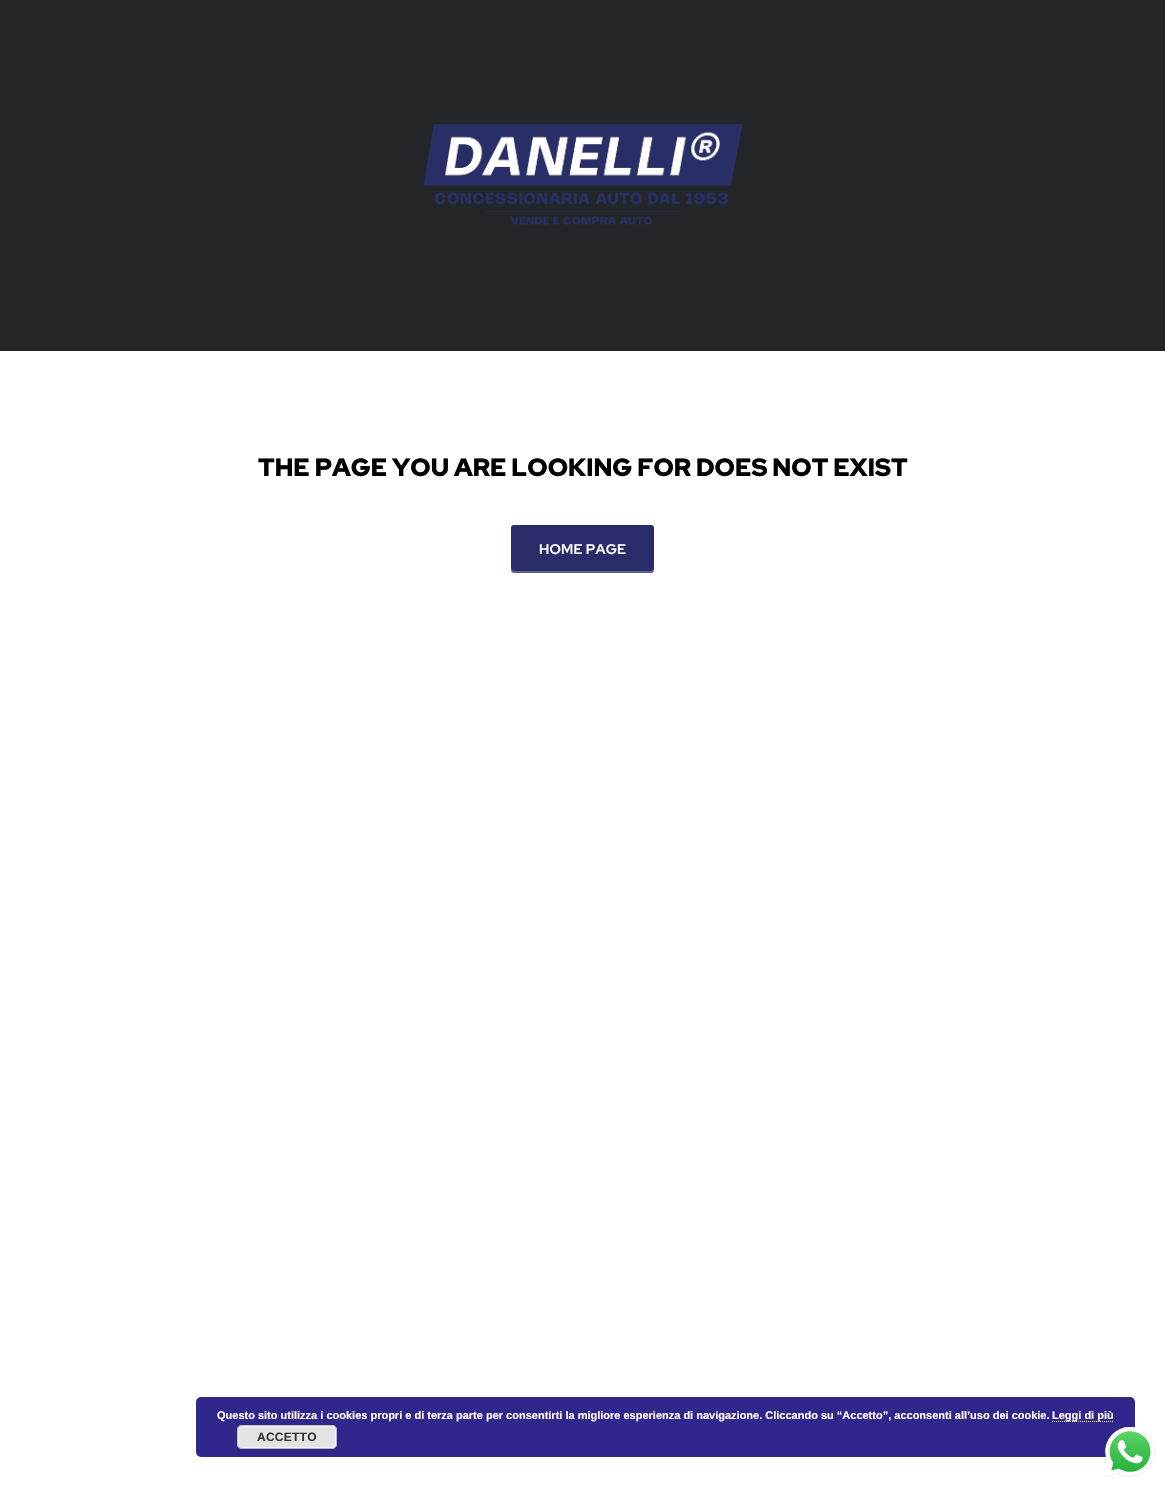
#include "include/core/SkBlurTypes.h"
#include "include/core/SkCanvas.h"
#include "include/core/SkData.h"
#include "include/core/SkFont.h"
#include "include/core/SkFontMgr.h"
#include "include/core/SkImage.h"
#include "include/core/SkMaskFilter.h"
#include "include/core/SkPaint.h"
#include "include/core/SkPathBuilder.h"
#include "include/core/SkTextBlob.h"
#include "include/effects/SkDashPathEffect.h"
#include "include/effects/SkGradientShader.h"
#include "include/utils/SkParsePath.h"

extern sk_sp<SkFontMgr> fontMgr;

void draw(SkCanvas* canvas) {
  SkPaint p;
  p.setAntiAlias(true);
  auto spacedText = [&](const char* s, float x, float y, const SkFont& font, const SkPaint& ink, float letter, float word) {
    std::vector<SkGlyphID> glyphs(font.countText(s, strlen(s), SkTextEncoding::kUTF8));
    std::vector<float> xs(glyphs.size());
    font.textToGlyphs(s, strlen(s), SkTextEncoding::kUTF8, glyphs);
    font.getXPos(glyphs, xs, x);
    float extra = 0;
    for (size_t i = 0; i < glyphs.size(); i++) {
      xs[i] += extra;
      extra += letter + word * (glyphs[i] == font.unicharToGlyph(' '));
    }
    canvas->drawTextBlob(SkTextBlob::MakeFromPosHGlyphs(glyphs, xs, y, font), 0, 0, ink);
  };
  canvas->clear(SK_ColorWHITE);
  p.setColor(SkColorSetRGB(35, 38, 40));
  canvas->drawRect(SkRect::MakeLTRB(0, 0, 1165, 351), p);
  canvas->drawImageRect(SkImages::DeferredFromEncodedData(SkData::MakeFromFileName("images/1.png")), SkRect::MakeLTRB(423, 124, 743, 225), SkSamplingOptions());
  p.setColor(SkColorSetRGB(95, 97, 143));
  canvas->drawPath(SkPathBuilder().moveTo(511, 568).lineTo(511, 570).cubicTo(511, 572, 512, 573, 514, 573).lineTo(651, 573).cubicTo(653, 573, 654, 572, 654, 570).lineTo(654, 568).cubicTo(654, 570, 653, 571, 651, 571).lineTo(514, 571).cubicTo(512, 571, 511, 570, 511, 568).close().detach(), p);
  p.setColor(SkColorSetRGB(42, 44, 105));
  canvas->drawRoundRect(SkRect::MakeLTRB(511, 525, 654, 571), 3, 3, p);
  p.setColor(SkColorSetRGB(49, 38, 140));
  canvas->drawRoundRect(SkRect::MakeLTRB(196, 1397, 1135, 1457), 5, 5, p);
  p.setStyle(SkPaint::kStroke_Style);
  p.setStrokeWidth(1);
  p.setColor(SK_ColorWHITE);
  p.setPathEffect(SkDashPathEffect::Make({{1, 1}}, 0));
  canvas->drawPath(SkPathBuilder().moveTo(1052, 1421.5f).lineTo(1114, 1421.5f).detach(), p);
  p.setPathEffect(nullptr);
  p.setStyle(SkPaint::kFill_Style);
  p.setColor(SkColorSetRGB(227, 227, 227));
  canvas->drawRoundRect(SkRect::MakeLTRB(237, 1425, 337, 1449), 5, 5, p);
  p.setStyle(SkPaint::kStroke_Style);
  p.setColor(SkColorSetRGB(246, 246, 246));
  canvas->drawRoundRect(SkRect::MakeLTRB(238.5f, 1426.5f, 335.5f, 1447.5f), 3.5f, 3.5f, p);
  p.setColor(SkColorSetRGB(187, 187, 187));
  canvas->drawRoundRect(SkRect::MakeLTRB(237.5f, 1425.5f, 336.5f, 1448.5f), 4.5f, 4.5f, p);
  canvas->drawImageRect(SkImages::DeferredFromEncodedData(SkData::MakeFromFileName("images/2.png")), SkRect::MakeLTRB(1105, 1427, 1155, 1477), SkSamplingOptions());
  SkFont font1(fontMgr->matchFamilyStyle("Red Hat Display", SkFontStyle(900, SkFontStyle::kNormal_Width, SkFontStyle::kUpright_Slant)), 25);
  font1.setSubpixel(true);
  p.setStyle(SkPaint::kFill_Style);
  p.setColor(SK_ColorBLACK);
  canvas->drawString("THE PAGE YOU ARE LOOKING FOR DOES NOT EXIST", 258, 476, font1, p);
  SkFont font2(fontMgr->matchFamilyStyle("Red Hat Display", SkFontStyle::Bold()), 14);
  font2.setSubpixel(true);
  p.setColor(SK_ColorWHITE);
  spacedText("HOME PAGE", 539, 554, font2, p, 0.25f, 0);
  SkFont font3(fontMgr->matchFamilyStyle("Liberation Sans", SkFontStyle::Bold()), 11);
  font3.setSubpixel(true);
  canvas->drawString("Questo sito utilizza i cookies propri e di terza parte per consentirti la migliore esperienza di navigazione. Cliccando su “Accetto”, acconsenti all’uso dei cookie.", 217, 1419, font3, p);
  canvas->drawString("Leggi di più", 1052, 1419, font3, p);
  SkFont font4(fontMgr->matchFamilyStyle("Liberation Sans", SkFontStyle::Bold()), 12);
  font4.setSubpixel(true);
  p.setColor(SkColorSetRGB(51, 51, 51));
  spacedText("ACCETTO", 257, 1441, font4, p, 0.25f, 0);
}
